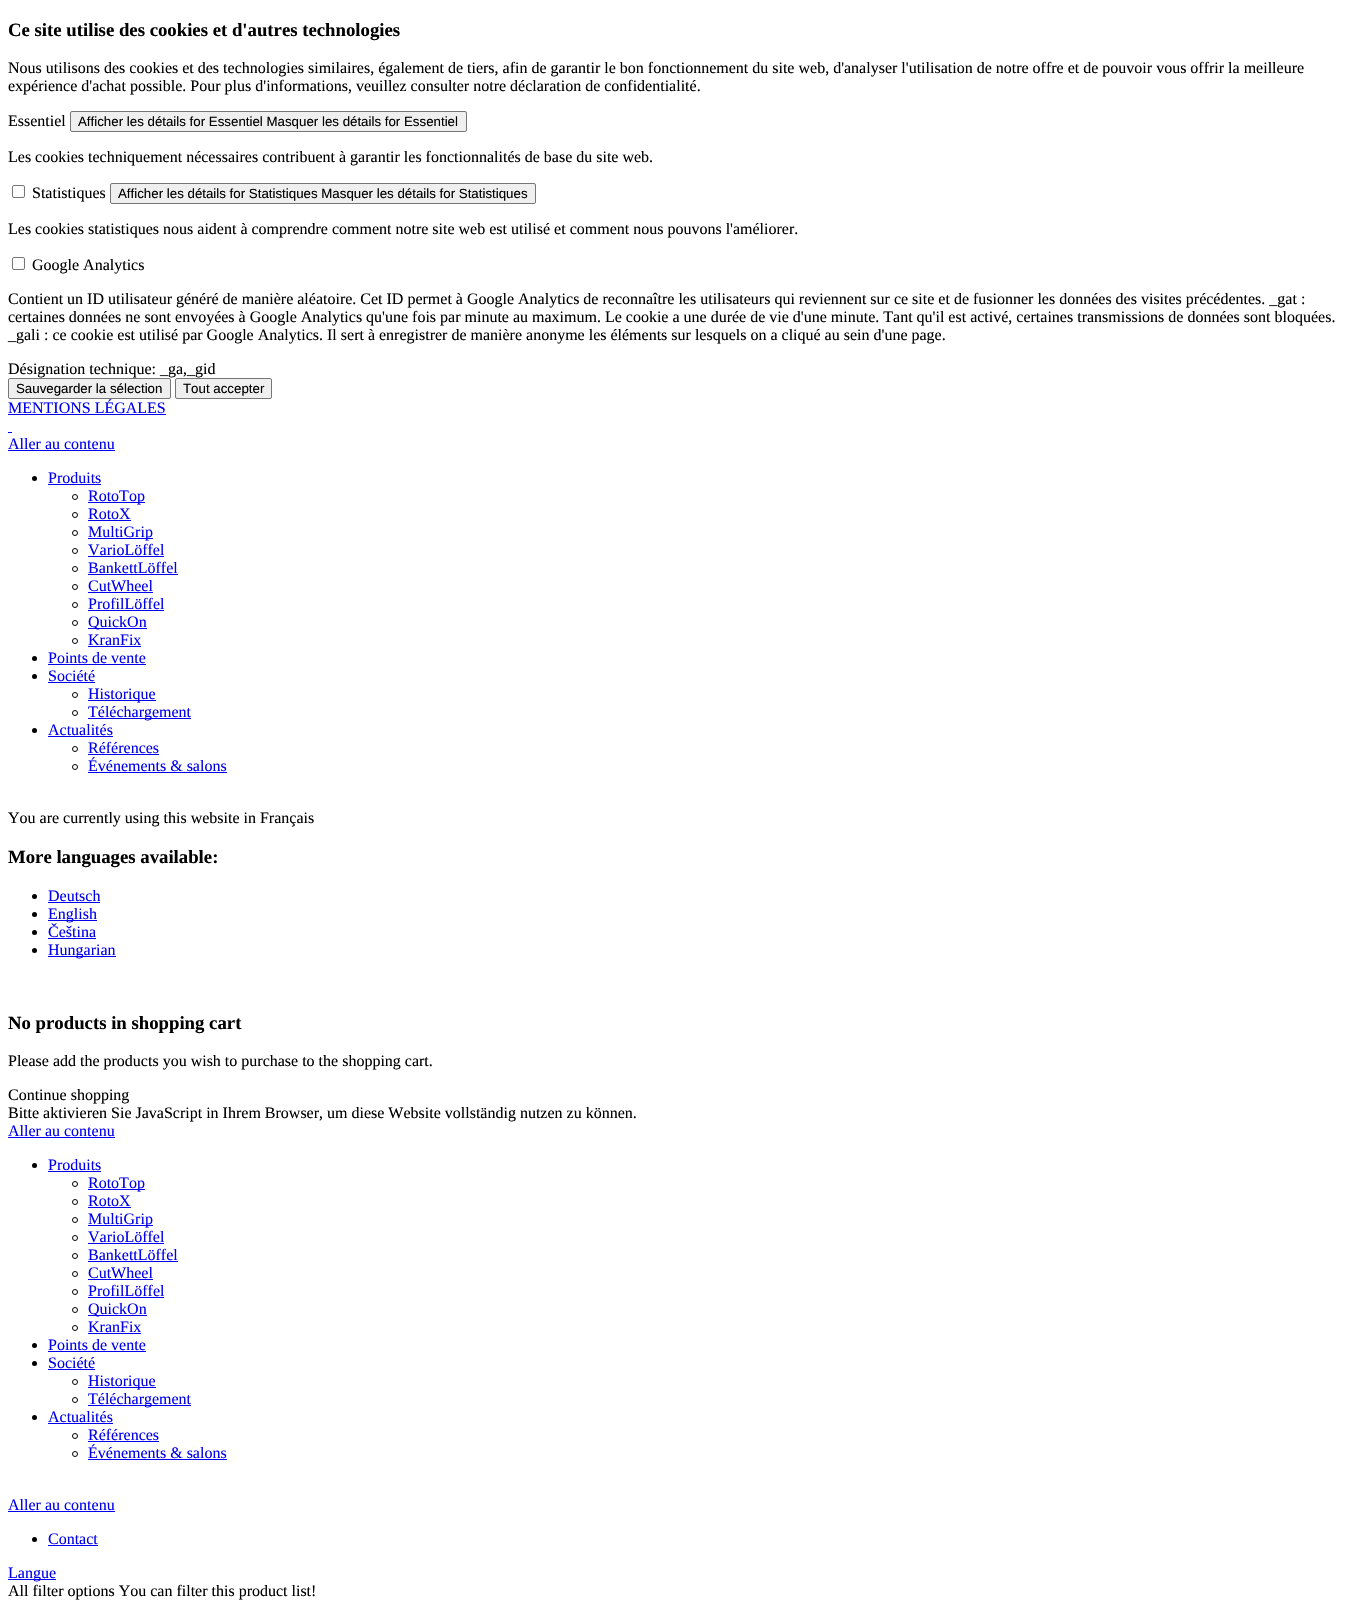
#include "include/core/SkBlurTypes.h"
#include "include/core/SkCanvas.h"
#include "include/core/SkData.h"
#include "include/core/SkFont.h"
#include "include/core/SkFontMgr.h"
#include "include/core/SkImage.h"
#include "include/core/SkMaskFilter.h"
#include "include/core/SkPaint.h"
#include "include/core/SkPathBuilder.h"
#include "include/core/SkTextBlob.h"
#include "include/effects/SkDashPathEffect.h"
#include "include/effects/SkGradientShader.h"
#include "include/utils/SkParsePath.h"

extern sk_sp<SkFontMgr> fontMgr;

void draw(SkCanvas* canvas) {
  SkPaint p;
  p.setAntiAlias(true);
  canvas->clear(SK_ColorWHITE);
  p.setColor(SkColorSetRGB(239, 239, 239));
  canvas->drawRoundRect(SkRect::MakeLTRB(70.5f, 111.5f, 466.5f, 131.5f), 1.5f, 1.5f, p);
  p.setStyle(SkPaint::kStroke_Style);
  p.setStrokeWidth(1);
  p.setColor(SkColorSetRGB(118, 118, 118));
  canvas->drawRoundRect(SkRect::MakeLTRB(70.5f, 111.5f, 466.5f, 131.5f), 1.5f, 1.5f, p);
  canvas->drawRoundRect(SkRect::MakeLTRB(12.5f, 185.5f, 24.5f, 197.5f), 1.5f, 1.5f, p);
  p.setStyle(SkPaint::kFill_Style);
  p.setColor(SkColorSetRGB(239, 239, 239));
  canvas->drawRoundRect(SkRect::MakeLTRB(110.5f, 183.5f, 535.5f, 203.5f), 1.5f, 1.5f, p);
  p.setStyle(SkPaint::kStroke_Style);
  p.setColor(SkColorSetRGB(118, 118, 118));
  canvas->drawRoundRect(SkRect::MakeLTRB(110.5f, 183.5f, 535.5f, 203.5f), 1.5f, 1.5f, p);
  canvas->drawRoundRect(SkRect::MakeLTRB(12.5f, 257.5f, 24.5f, 269.5f), 1.5f, 1.5f, p);
  p.setStyle(SkPaint::kFill_Style);
  p.setColor(SkColorSetRGB(239, 239, 239));
  canvas->drawRoundRect(SkRect::MakeLTRB(8.5f, 378.5f, 170.5f, 398.5f), 1.5f, 1.5f, p);
  p.setStyle(SkPaint::kStroke_Style);
  p.setColor(SkColorSetRGB(118, 118, 118));
  canvas->drawRoundRect(SkRect::MakeLTRB(8.5f, 378.5f, 170.5f, 398.5f), 1.5f, 1.5f, p);
  p.setStyle(SkPaint::kFill_Style);
  p.setColor(SkColorSetRGB(239, 239, 239));
  canvas->drawRoundRect(SkRect::MakeLTRB(175.5f, 378.5f, 271.5f, 398.5f), 1.5f, 1.5f, p);
  p.setStyle(SkPaint::kStroke_Style);
  p.setColor(SkColorSetRGB(118, 118, 118));
  canvas->drawRoundRect(SkRect::MakeLTRB(175.5f, 378.5f, 271.5f, 398.5f), 1.5f, 1.5f, p);
  p.setStyle(SkPaint::kFill_Style);
  p.setColor(SkColorSetRGB(0, 0, 238));
  canvas->drawRect(SkRect::MakeLTRB(8, 414, 166, 415), p);
  canvas->drawRect(SkRect::MakeLTRB(8, 432, 12, 433), p);
  canvas->drawRect(SkRect::MakeLTRB(8, 450, 115, 451), p);
  p.setColor(SK_ColorBLACK);
  canvas->drawCircle(34.5f, 478.5f, 2.5f, p);
  p.setColor(SkColorSetRGB(0, 0, 238));
  canvas->drawRect(SkRect::MakeLTRB(48, 484, 101, 485), p);
  p.setStyle(SkPaint::kStroke_Style);
  p.setColor(SK_ColorBLACK);
  canvas->drawCircle(75, 497, 2.5f, p);
  p.setStyle(SkPaint::kFill_Style);
  p.setColor(SkColorSetRGB(0, 0, 238));
  canvas->drawRect(SkRect::MakeLTRB(88, 502, 145, 503), p);
  p.setStyle(SkPaint::kStroke_Style);
  p.setColor(SK_ColorBLACK);
  canvas->drawCircle(75, 515, 2.5f, p);
  p.setStyle(SkPaint::kFill_Style);
  p.setColor(SkColorSetRGB(0, 0, 238));
  canvas->drawRect(SkRect::MakeLTRB(88, 520, 131, 521), p);
  p.setStyle(SkPaint::kStroke_Style);
  p.setColor(SK_ColorBLACK);
  canvas->drawCircle(75, 533, 2.5f, p);
  p.setStyle(SkPaint::kFill_Style);
  p.setColor(SkColorSetRGB(0, 0, 238));
  canvas->drawRect(SkRect::MakeLTRB(88, 538, 153, 539), p);
  p.setStyle(SkPaint::kStroke_Style);
  p.setColor(SK_ColorBLACK);
  canvas->drawCircle(75, 551, 2.5f, p);
  p.setStyle(SkPaint::kFill_Style);
  p.setColor(SkColorSetRGB(0, 0, 238));
  canvas->drawRect(SkRect::MakeLTRB(88, 556, 164, 557), p);
  p.setStyle(SkPaint::kStroke_Style);
  p.setColor(SK_ColorBLACK);
  canvas->drawCircle(75, 569, 2.5f, p);
  p.setStyle(SkPaint::kFill_Style);
  p.setColor(SkColorSetRGB(0, 0, 238));
  canvas->drawRect(SkRect::MakeLTRB(88, 574, 178, 575), p);
  p.setStyle(SkPaint::kStroke_Style);
  p.setColor(SK_ColorBLACK);
  canvas->drawCircle(75, 587, 2.5f, p);
  p.setStyle(SkPaint::kFill_Style);
  p.setColor(SkColorSetRGB(0, 0, 238));
  canvas->drawRect(SkRect::MakeLTRB(88, 592, 153, 593), p);
  p.setStyle(SkPaint::kStroke_Style);
  p.setColor(SK_ColorBLACK);
  canvas->drawCircle(75, 605, 2.5f, p);
  p.setStyle(SkPaint::kFill_Style);
  p.setColor(SkColorSetRGB(0, 0, 238));
  canvas->drawRect(SkRect::MakeLTRB(88, 610, 164, 611), p);
  p.setStyle(SkPaint::kStroke_Style);
  p.setColor(SK_ColorBLACK);
  canvas->drawCircle(75, 623, 2.5f, p);
  p.setStyle(SkPaint::kFill_Style);
  p.setColor(SkColorSetRGB(0, 0, 238));
  canvas->drawRect(SkRect::MakeLTRB(88, 628, 147, 629), p);
  p.setStyle(SkPaint::kStroke_Style);
  p.setColor(SK_ColorBLACK);
  canvas->drawCircle(75, 641, 2.5f, p);
  p.setStyle(SkPaint::kFill_Style);
  p.setColor(SkColorSetRGB(0, 0, 238));
  canvas->drawRect(SkRect::MakeLTRB(88, 646, 141, 647), p);
  p.setColor(SK_ColorBLACK);
  canvas->drawCircle(34.5f, 658.5f, 2.5f, p);
  p.setColor(SkColorSetRGB(0, 0, 238));
  canvas->drawRect(SkRect::MakeLTRB(48, 664, 146, 665), p);
  p.setColor(SK_ColorBLACK);
  canvas->drawCircle(34.5f, 676.5f, 2.5f, p);
  p.setColor(SkColorSetRGB(0, 0, 238));
  canvas->drawRect(SkRect::MakeLTRB(48, 682, 95, 683), p);
  p.setStyle(SkPaint::kStroke_Style);
  p.setColor(SK_ColorBLACK);
  canvas->drawCircle(75, 695, 2.5f, p);
  p.setStyle(SkPaint::kFill_Style);
  p.setColor(SkColorSetRGB(0, 0, 238));
  canvas->drawRect(SkRect::MakeLTRB(88, 700, 156, 701), p);
  p.setStyle(SkPaint::kStroke_Style);
  p.setColor(SK_ColorBLACK);
  canvas->drawCircle(75, 713, 2.5f, p);
  p.setStyle(SkPaint::kFill_Style);
  p.setColor(SkColorSetRGB(0, 0, 238));
  canvas->drawRect(SkRect::MakeLTRB(88, 718, 191, 719), p);
  p.setColor(SK_ColorBLACK);
  canvas->drawCircle(34.5f, 730.5f, 2.5f, p);
  p.setColor(SkColorSetRGB(0, 0, 238));
  canvas->drawRect(SkRect::MakeLTRB(48, 736, 113, 737), p);
  p.setStyle(SkPaint::kStroke_Style);
  p.setColor(SK_ColorBLACK);
  canvas->drawCircle(75, 749, 2.5f, p);
  p.setStyle(SkPaint::kFill_Style);
  p.setColor(SkColorSetRGB(0, 0, 238));
  canvas->drawRect(SkRect::MakeLTRB(88, 754, 159, 755), p);
  p.setStyle(SkPaint::kStroke_Style);
  p.setColor(SK_ColorBLACK);
  canvas->drawCircle(75, 767, 2.5f, p);
  p.setStyle(SkPaint::kFill_Style);
  p.setColor(SkColorSetRGB(0, 0, 238));
  canvas->drawRect(SkRect::MakeLTRB(88, 772, 227, 773), p);
  p.setColor(SK_ColorBLACK);
  canvas->drawCircle(34.5f, 896.5f, 2.5f, p);
  p.setColor(SkColorSetRGB(0, 0, 238));
  canvas->drawRect(SkRect::MakeLTRB(48, 902, 100, 903), p);
  p.setColor(SK_ColorBLACK);
  canvas->drawCircle(34.5f, 914.5f, 2.5f, p);
  p.setColor(SkColorSetRGB(0, 0, 238));
  canvas->drawRect(SkRect::MakeLTRB(48, 920, 97, 921), p);
  p.setColor(SK_ColorBLACK);
  canvas->drawCircle(34.5f, 932.5f, 2.5f, p);
  p.setColor(SkColorSetRGB(0, 0, 238));
  canvas->drawRect(SkRect::MakeLTRB(48, 938, 96, 939), p);
  p.setColor(SK_ColorBLACK);
  canvas->drawCircle(34.5f, 950.5f, 2.5f, p);
  p.setColor(SkColorSetRGB(0, 0, 238));
  canvas->drawRect(SkRect::MakeLTRB(48, 956, 116, 957), p);
  canvas->drawRect(SkRect::MakeLTRB(8, 1137, 115, 1138), p);
  p.setColor(SK_ColorBLACK);
  canvas->drawCircle(34.5f, 1165.5f, 2.5f, p);
  p.setColor(SkColorSetRGB(0, 0, 238));
  canvas->drawRect(SkRect::MakeLTRB(48, 1171, 101, 1172), p);
  p.setStyle(SkPaint::kStroke_Style);
  p.setColor(SK_ColorBLACK);
  canvas->drawCircle(75, 1184, 2.5f, p);
  p.setStyle(SkPaint::kFill_Style);
  p.setColor(SkColorSetRGB(0, 0, 238));
  canvas->drawRect(SkRect::MakeLTRB(88, 1189, 145, 1190), p);
  p.setStyle(SkPaint::kStroke_Style);
  p.setColor(SK_ColorBLACK);
  canvas->drawCircle(75, 1202, 2.5f, p);
  p.setStyle(SkPaint::kFill_Style);
  p.setColor(SkColorSetRGB(0, 0, 238));
  canvas->drawRect(SkRect::MakeLTRB(88, 1207, 131, 1208), p);
  p.setStyle(SkPaint::kStroke_Style);
  p.setColor(SK_ColorBLACK);
  canvas->drawCircle(75, 1220, 2.5f, p);
  p.setStyle(SkPaint::kFill_Style);
  p.setColor(SkColorSetRGB(0, 0, 238));
  canvas->drawRect(SkRect::MakeLTRB(88, 1225, 153, 1226), p);
  p.setStyle(SkPaint::kStroke_Style);
  p.setColor(SK_ColorBLACK);
  canvas->drawCircle(75, 1238, 2.5f, p);
  p.setStyle(SkPaint::kFill_Style);
  p.setColor(SkColorSetRGB(0, 0, 238));
  canvas->drawRect(SkRect::MakeLTRB(88, 1243, 164, 1244), p);
  p.setStyle(SkPaint::kStroke_Style);
  p.setColor(SK_ColorBLACK);
  canvas->drawCircle(75, 1256, 2.5f, p);
  p.setStyle(SkPaint::kFill_Style);
  p.setColor(SkColorSetRGB(0, 0, 238));
  canvas->drawRect(SkRect::MakeLTRB(88, 1261, 178, 1262), p);
  p.setStyle(SkPaint::kStroke_Style);
  p.setColor(SK_ColorBLACK);
  canvas->drawCircle(75, 1274, 2.5f, p);
  p.setStyle(SkPaint::kFill_Style);
  p.setColor(SkColorSetRGB(0, 0, 238));
  canvas->drawRect(SkRect::MakeLTRB(88, 1279, 153, 1280), p);
  p.setStyle(SkPaint::kStroke_Style);
  p.setColor(SK_ColorBLACK);
  canvas->drawCircle(75, 1292, 2.5f, p);
  p.setStyle(SkPaint::kFill_Style);
  p.setColor(SkColorSetRGB(0, 0, 238));
  canvas->drawRect(SkRect::MakeLTRB(88, 1297, 164, 1298), p);
  p.setStyle(SkPaint::kStroke_Style);
  p.setColor(SK_ColorBLACK);
  canvas->drawCircle(75, 1310, 2.5f, p);
  p.setStyle(SkPaint::kFill_Style);
  p.setColor(SkColorSetRGB(0, 0, 238));
  canvas->drawRect(SkRect::MakeLTRB(88, 1315, 147, 1316), p);
  p.setStyle(SkPaint::kStroke_Style);
  p.setColor(SK_ColorBLACK);
  canvas->drawCircle(75, 1328, 2.5f, p);
  p.setStyle(SkPaint::kFill_Style);
  p.setColor(SkColorSetRGB(0, 0, 238));
  canvas->drawRect(SkRect::MakeLTRB(88, 1333, 141, 1334), p);
  p.setColor(SK_ColorBLACK);
  canvas->drawCircle(34.5f, 1345.5f, 2.5f, p);
  p.setColor(SkColorSetRGB(0, 0, 238));
  canvas->drawRect(SkRect::MakeLTRB(48, 1351, 146, 1352), p);
  p.setColor(SK_ColorBLACK);
  canvas->drawCircle(34.5f, 1363.5f, 2.5f, p);
  p.setColor(SkColorSetRGB(0, 0, 238));
  canvas->drawRect(SkRect::MakeLTRB(48, 1369, 95, 1370), p);
  p.setStyle(SkPaint::kStroke_Style);
  p.setColor(SK_ColorBLACK);
  canvas->drawCircle(75, 1382, 2.5f, p);
  p.setStyle(SkPaint::kFill_Style);
  p.setColor(SkColorSetRGB(0, 0, 238));
  canvas->drawRect(SkRect::MakeLTRB(88, 1387, 156, 1388), p);
  p.setStyle(SkPaint::kStroke_Style);
  p.setColor(SK_ColorBLACK);
  canvas->drawCircle(75, 1400, 2.5f, p);
  p.setStyle(SkPaint::kFill_Style);
  p.setColor(SkColorSetRGB(0, 0, 238));
  canvas->drawRect(SkRect::MakeLTRB(88, 1405, 191, 1406), p);
  p.setColor(SK_ColorBLACK);
  canvas->drawCircle(34.5f, 1417.5f, 2.5f, p);
  p.setColor(SkColorSetRGB(0, 0, 238));
  canvas->drawRect(SkRect::MakeLTRB(48, 1423, 113, 1424), p);
  p.setStyle(SkPaint::kStroke_Style);
  p.setColor(SK_ColorBLACK);
  canvas->drawCircle(75, 1436, 2.5f, p);
  p.setStyle(SkPaint::kFill_Style);
  p.setColor(SkColorSetRGB(0, 0, 238));
  canvas->drawRect(SkRect::MakeLTRB(88, 1441, 159, 1442), p);
  p.setStyle(SkPaint::kStroke_Style);
  p.setColor(SK_ColorBLACK);
  canvas->drawCircle(75, 1454, 2.5f, p);
  p.setStyle(SkPaint::kFill_Style);
  p.setColor(SkColorSetRGB(0, 0, 238));
  canvas->drawRect(SkRect::MakeLTRB(88, 1459, 227, 1460), p);
  canvas->drawRect(SkRect::MakeLTRB(8, 1511, 115, 1512), p);
  p.setColor(SK_ColorBLACK);
  canvas->drawCircle(34.5f, 1539.5f, 2.5f, p);
  p.setColor(SkColorSetRGB(0, 0, 238));
  canvas->drawRect(SkRect::MakeLTRB(48, 1545, 98, 1546), p);
  canvas->drawRect(SkRect::MakeLTRB(8, 1579, 56, 1580), p);
  SkFont font1(fontMgr->matchFamilyStyle("Liberation Serif", SkFontStyle::Bold()), 18.75f);
  font1.setSubpixel(true);
  p.setColor(SK_ColorBLACK);
  canvas->drawString("Ce site utilise des cookies et d'autres technologies", 8, 36, font1, p);
  SkFont font2(fontMgr->matchFamilyStyle("Liberation Serif", SkFontStyle::Normal()), 16);
  font2.setSubpixel(true);
  canvas->drawString("Nous utilisons des cookies et des technologies similaires, également de tiers, afin de garantir le bon fonctionnement du site web, d'analyser l'utilisation de notre offre et de pouvoir vous offrir la meilleure", 8, 73, font2, p);
  canvas->drawString("expérience d'achat possible. Pour plus d'informations, veuillez consulter notre déclaration de confidentialité.", 8, 91, font2, p);
  canvas->drawString("Essentiel", 8, 126, font2, p);
  SkFont font3(fontMgr->matchFamilyStyle("Liberation Sans", SkFontStyle::Normal()), 13.3f);
  font3.setSubpixel(true);
  canvas->drawString("Afficher les détails for Essentiel Masquer les détails for Essentiel", 78, 126, font3, p);
  canvas->drawString("Les cookies techniquement nécessaires contribuent à garantir les fonctionnalités de base du site web.", 8, 162, font2, p);
  canvas->drawString("Statistiques", 32, 198, font2, p);
  canvas->drawString("Afficher les détails for Statistiques Masquer les détails for Statistiques", 118, 198, font3, p);
  canvas->drawString("Les cookies statistiques nous aident à comprendre comment notre site web est utilisé et comment nous pouvons l'améliorer.", 8, 234, font2, p);
  canvas->drawString("Google Analytics", 32, 270, font2, p);
  canvas->drawString("Contient un ID utilisateur généré de manière aléatoire. Cet ID permet à Google Analytics de reconnaître les utilisateurs qui reviennent sur ce site et de fusionner les données des visites précédentes. _gat :", 8, 304, font2, p);
  canvas->drawString("certaines données ne sont envoyées à Google Analytics qu'une fois par minute au maximum. Le cookie a une durée de vie d'une minute. Tant qu'il est activé, certaines transmissions de données sont bloquées.", 8, 322, font2, p);
  canvas->drawString("_gali : ce cookie est utilisé par Google Analytics. Il sert à enregistrer de manière anonyme les éléments sur lesquels on a cliqué au sein d'une page.", 8, 340, font2, p);
  canvas->drawString("Désignation technique: _ga,_gid", 8, 374, font2, p);
  canvas->drawString("Sauvegarder la sélection", 16, 393, font3, p);
  canvas->drawString("Tout accepter", 183, 393, font3, p);
  p.setColor(SkColorSetRGB(0, 0, 238));
  canvas->drawString("MENTIONS LÉGALES", 8, 413, font2, p);
  canvas->drawString("Aller au contenu", 8, 449, font2, p);
  canvas->drawString("Produits", 48, 483, font2, p);
  canvas->drawString("RotoTop", 88, 501, font2, p);
  canvas->drawString("RotoX", 88, 519, font2, p);
  canvas->drawString("MultiGrip", 88, 537, font2, p);
  canvas->drawString("VarioLöffel", 88, 555, font2, p);
  canvas->drawString("BankettLöffel", 88, 573, font2, p);
  canvas->drawString("CutWheel", 88, 591, font2, p);
  canvas->drawString("ProfilLöffel", 88, 609, font2, p);
  canvas->drawString("QuickOn", 88, 627, font2, p);
  canvas->drawString("KranFix", 88, 645, font2, p);
  canvas->drawString("Points de vente", 48, 663, font2, p);
  canvas->drawString("Société", 48, 681, font2, p);
  canvas->drawString("Historique", 88, 699, font2, p);
  canvas->drawString("Téléchargement", 88, 717, font2, p);
  canvas->drawString("Actualités", 48, 735, font2, p);
  canvas->drawString("Références", 88, 753, font2, p);
  canvas->drawString("Événements & salons", 88, 771, font2, p);
  p.setColor(SK_ColorBLACK);
  canvas->drawString("You are currently using this website in Français", 8, 823, font2, p);
  canvas->drawString("More languages available:", 8, 863, font1, p);
  p.setColor(SkColorSetRGB(0, 0, 238));
  canvas->drawString("Deutsch", 48, 901, font2, p);
  canvas->drawString("English", 48, 919, font2, p);
  canvas->drawString("Čeština", 48, 937, font2, p);
  canvas->drawString("Hungarian", 48, 955, font2, p);
  p.setColor(SK_ColorBLACK);
  canvas->drawString("No products in shopping cart", 8, 1029, font1, p);
  canvas->drawString("Please add the products you wish to purchase to the shopping cart.", 8, 1066, font2, p);
  canvas->drawString("Continue shopping", 8, 1100, font2, p);
  canvas->drawString("Bitte aktivieren Sie JavaScript in Ihrem Browser, um diese Website vollständig nutzen zu können.", 8, 1118, font2, p);
  p.setColor(SkColorSetRGB(0, 0, 238));
  canvas->drawString("Aller au contenu", 8, 1136, font2, p);
  canvas->drawString("Produits", 48, 1170, font2, p);
  canvas->drawString("RotoTop", 88, 1188, font2, p);
  canvas->drawString("RotoX", 88, 1206, font2, p);
  canvas->drawString("MultiGrip", 88, 1224, font2, p);
  canvas->drawString("VarioLöffel", 88, 1242, font2, p);
  canvas->drawString("BankettLöffel", 88, 1260, font2, p);
  canvas->drawString("CutWheel", 88, 1278, font2, p);
  canvas->drawString("ProfilLöffel", 88, 1296, font2, p);
  canvas->drawString("QuickOn", 88, 1314, font2, p);
  canvas->drawString("KranFix", 88, 1332, font2, p);
  canvas->drawString("Points de vente", 48, 1350, font2, p);
  canvas->drawString("Société", 48, 1368, font2, p);
  canvas->drawString("Historique", 88, 1386, font2, p);
  canvas->drawString("Téléchargement", 88, 1404, font2, p);
  canvas->drawString("Actualités", 48, 1422, font2, p);
  canvas->drawString("Références", 88, 1440, font2, p);
  canvas->drawString("Événements & salons", 88, 1458, font2, p);
  canvas->drawString("Aller au contenu", 8, 1510, font2, p);
  canvas->drawString("Contact", 48, 1544, font2, p);
  canvas->drawString("Langue", 8, 1578, font2, p);
  p.setColor(SK_ColorBLACK);
  canvas->drawString("All filter options You can filter this product list!", 8, 1596, font2, p);
}
